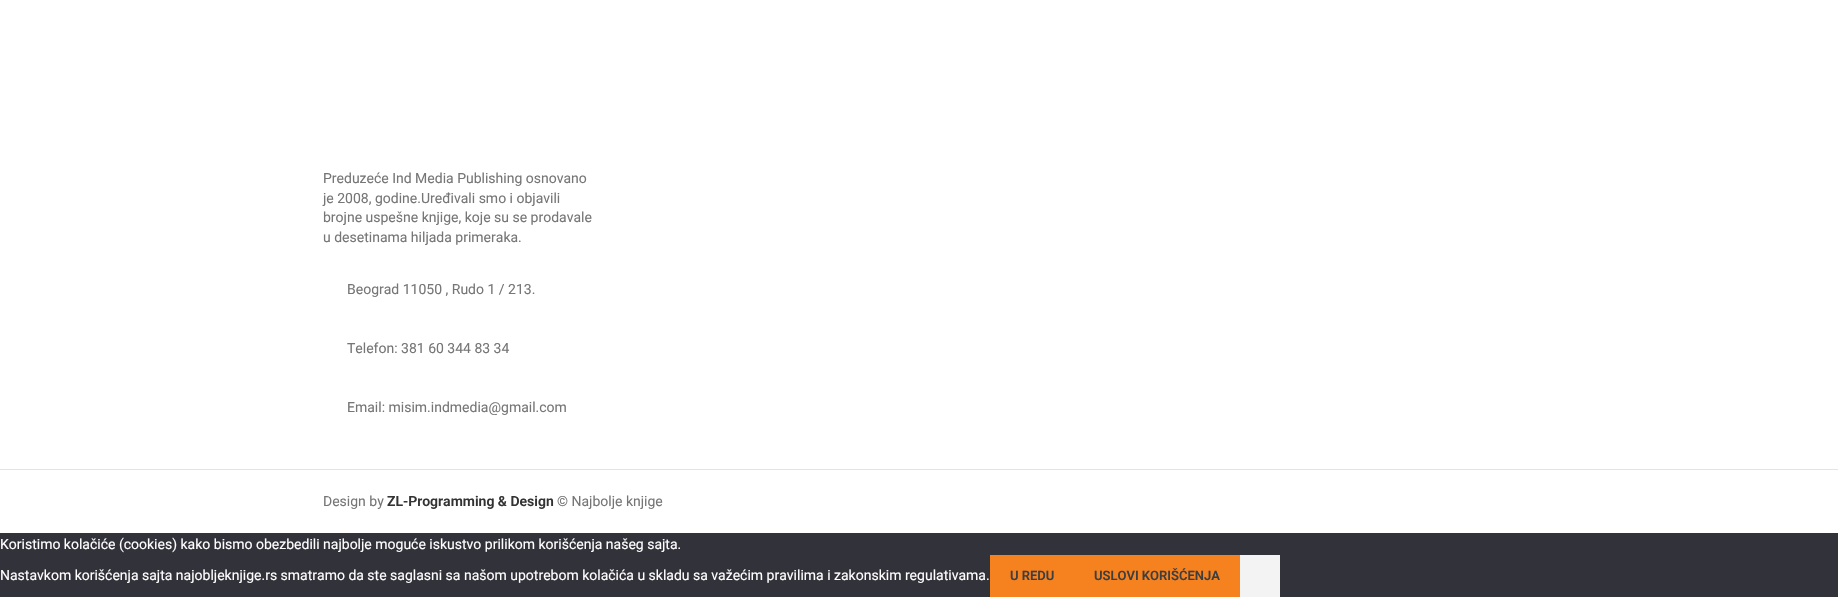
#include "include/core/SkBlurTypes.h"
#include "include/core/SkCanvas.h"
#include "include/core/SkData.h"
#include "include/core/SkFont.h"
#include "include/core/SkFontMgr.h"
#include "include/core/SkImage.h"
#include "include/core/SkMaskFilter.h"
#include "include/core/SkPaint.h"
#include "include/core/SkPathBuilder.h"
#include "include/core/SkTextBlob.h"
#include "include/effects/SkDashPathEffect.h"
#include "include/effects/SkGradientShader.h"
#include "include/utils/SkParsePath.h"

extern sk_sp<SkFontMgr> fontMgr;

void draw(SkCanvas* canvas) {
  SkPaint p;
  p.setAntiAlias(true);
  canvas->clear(SK_ColorWHITE);
  p.setColor(SkColorSetRGB(228, 228, 228));
  canvas->drawRect(SkRect::MakeLTRB(0, 469, 1838, 470), p);
  p.setColor(SkColorSetRGB(50, 50, 58));
  canvas->drawRect(SkRect::MakeLTRB(0, 533, 1838, 597), p);
  p.setColor(SkColorSetRGB(246, 130, 31));
  canvas->drawRect(SkRect::MakeLTRB(990, 555, 1240, 597), p);
  p.setColor(SkColorSetRGB(243, 243, 243));
  canvas->drawRect(SkRect::MakeLTRB(1240, 555, 1280, 597), p);
  SkFont font1(fontMgr->matchFamilyStyle("Roboto", SkFontStyle::Normal()), 14);
  font1.setSubpixel(true);
  p.setColor(SkColorSetRGB(118, 118, 118));
  canvas->drawString("Preduzeće Ind Media Publishing osnovano", 323, 183, font1, p);
  canvas->drawString("je 2008, godine.Uređivali smo i objavili", 323, 203, font1, p);
  canvas->drawString("brojne uspešne knjige, koje su se prodavale", 323, 222, font1, p);
  canvas->drawString("u desetinama hiljada primeraka.", 323, 242, font1, p);
  canvas->drawString("Beograd 11050 , Rudo 1 / 213.", 347, 294, font1, p);
  canvas->drawString("Telefon: 381 60 344 83 34", 347, 353, font1, p);
  canvas->drawString("Email: misim.indmedia@gmail.com", 347, 412, font1, p);
  canvas->drawString("Design by", 323, 506, font1, p);
  SkFont font2(fontMgr->matchFamilyStyle("Roboto", SkFontStyle(600, SkFontStyle::kNormal_Width, SkFontStyle::kUpright_Slant)), 14);
  font2.setSubpixel(true);
  p.setColor(SkColorSetRGB(51, 51, 51));
  canvas->drawString("ZL-Programming & Design", 387, 506, font2, p);
  p.setColor(SkColorSetRGB(118, 118, 118));
  canvas->drawString("© Najbolje knjige", 557, 506, font1, p);
  p.setColor(SK_ColorWHITE);
  canvas->drawString("Koristimo kolačiće (cookies) kako bismo obezbedili najbolje moguće iskustvo prilikom korišćenja našeg sajta.", 0, 549, font1, p);
  canvas->drawString("Nastavkom korišćenja sajta najobljeknjige.rs smatramo da ste saglasni sa našom upotrebom kolačića u skladu sa važećim pravilima i zakonskim regulativama.", 0, 580, font1, p);
  SkFont font3(fontMgr->matchFamilyStyle("Roboto", SkFontStyle(600, SkFontStyle::kNormal_Width, SkFontStyle::kUpright_Slant)), 13);
  font3.setSubpixel(true);
  p.setColor(SkColorSetRGB(62, 62, 62));
  canvas->drawString("U REDU", 1010, 580, font3, p);
  canvas->drawString("USLOVI KORIŠĆENJA", 1094, 580, font3, p);
}
